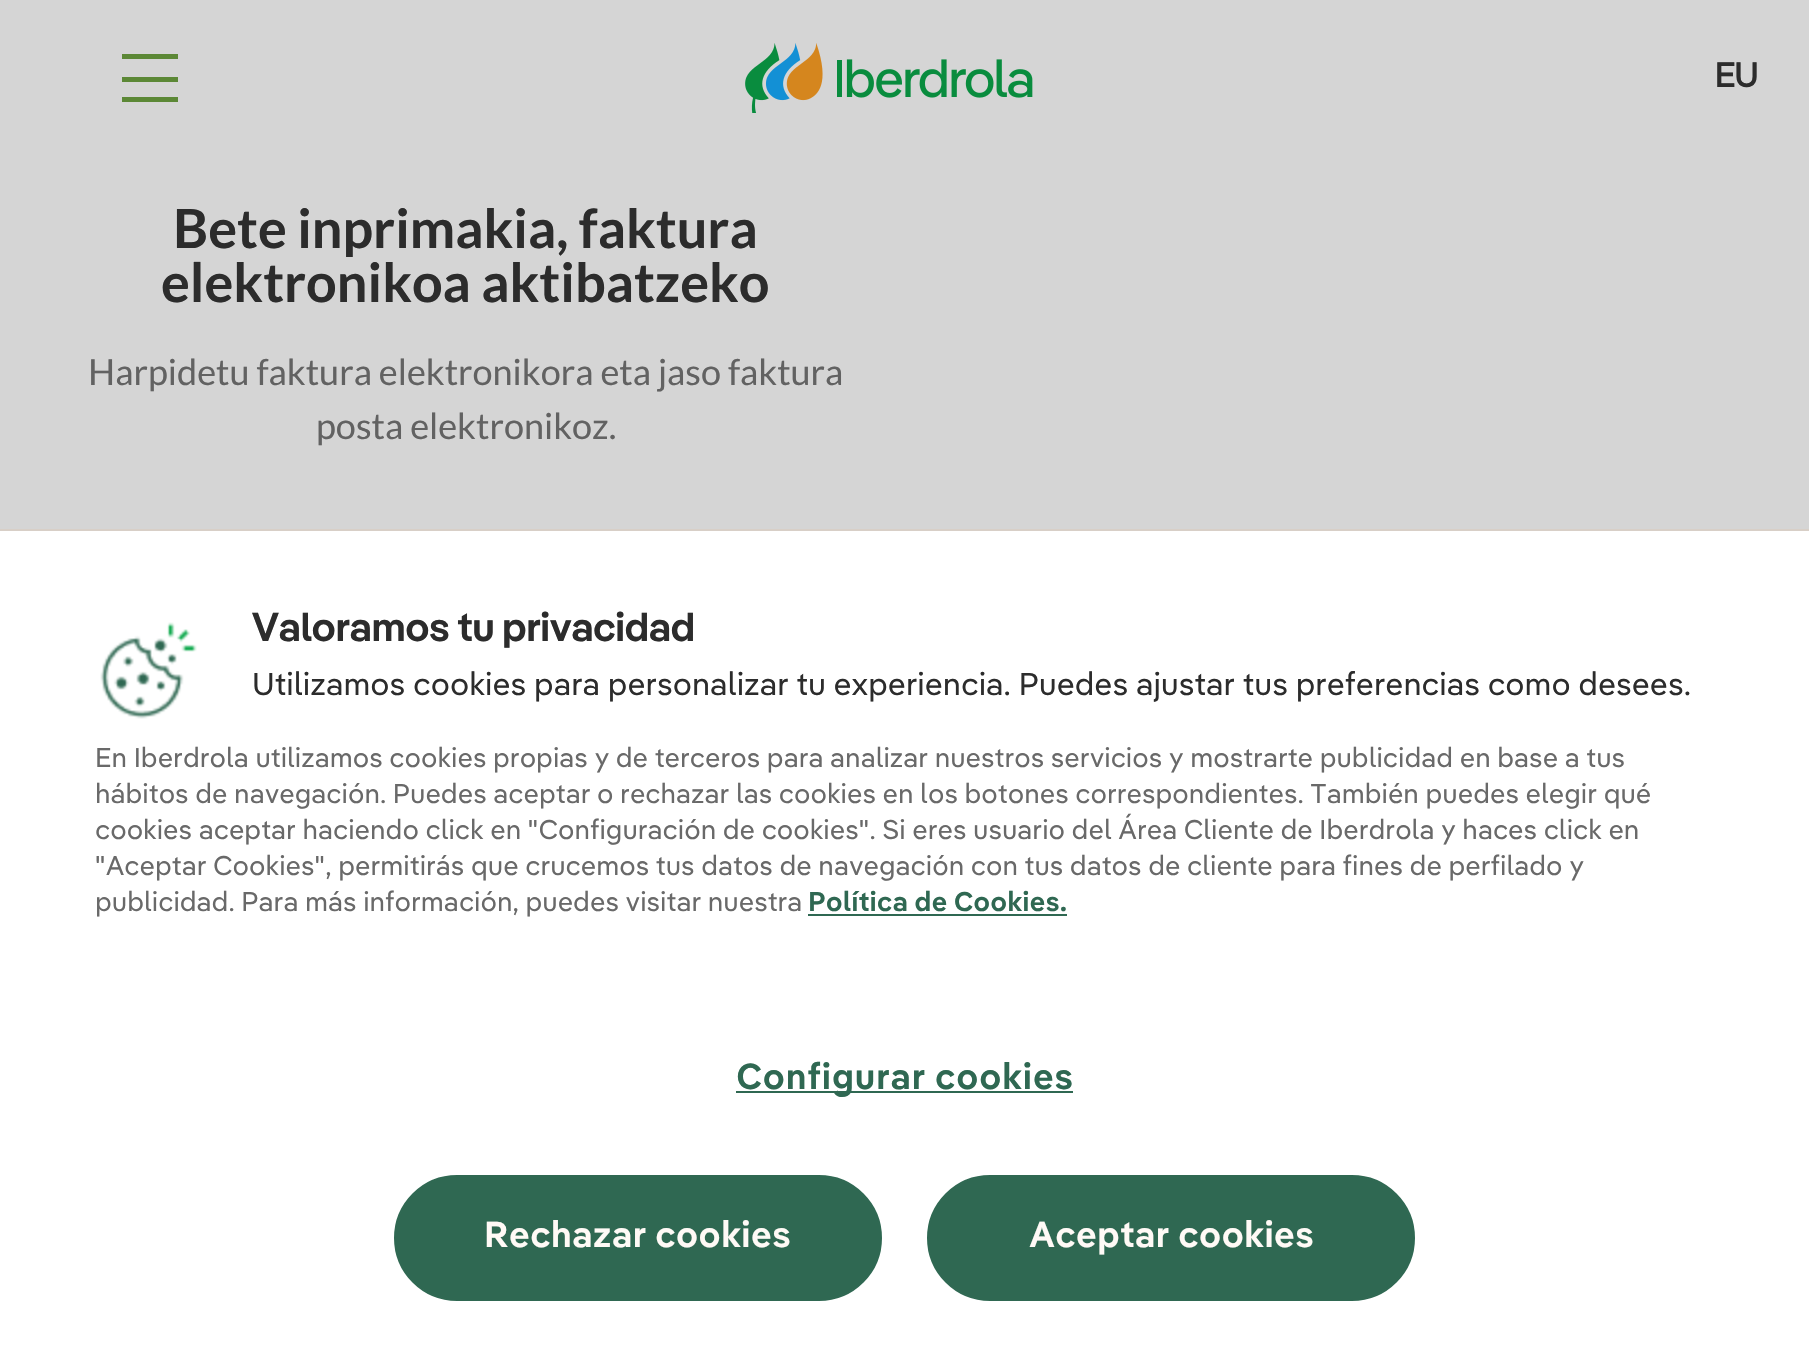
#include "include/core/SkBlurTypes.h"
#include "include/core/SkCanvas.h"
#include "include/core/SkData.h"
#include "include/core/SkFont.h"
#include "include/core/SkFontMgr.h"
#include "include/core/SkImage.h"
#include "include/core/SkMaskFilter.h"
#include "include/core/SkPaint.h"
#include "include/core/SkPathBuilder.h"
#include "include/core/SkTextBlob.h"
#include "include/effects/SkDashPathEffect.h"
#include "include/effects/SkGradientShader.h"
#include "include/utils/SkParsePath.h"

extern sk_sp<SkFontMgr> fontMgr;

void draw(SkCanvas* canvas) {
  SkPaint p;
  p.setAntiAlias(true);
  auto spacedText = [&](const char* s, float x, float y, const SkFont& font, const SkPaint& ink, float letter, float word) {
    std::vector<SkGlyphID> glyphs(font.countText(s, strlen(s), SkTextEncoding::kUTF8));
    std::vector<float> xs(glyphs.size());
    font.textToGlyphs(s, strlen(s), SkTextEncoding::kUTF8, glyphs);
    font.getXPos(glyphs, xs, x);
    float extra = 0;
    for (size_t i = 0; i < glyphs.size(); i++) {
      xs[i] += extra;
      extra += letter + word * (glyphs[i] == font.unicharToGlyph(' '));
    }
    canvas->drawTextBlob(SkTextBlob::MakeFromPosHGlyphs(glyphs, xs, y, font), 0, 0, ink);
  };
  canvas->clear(SkColorSetRGB(213, 213, 213));
  p.setColor(SkColorSetRGB(92, 136, 54));
  canvas->drawRect(SkRect::MakeLTRB(122, 54, 178, 59), p);
  canvas->drawRect(SkRect::MakeLTRB(122, 77, 178, 82), p);
  canvas->drawRect(SkRect::MakeLTRB(122, 97, 178, 102), p);
  canvas->drawImageRect(SkImages::DeferredFromEncodedData(SkData::MakeFromFileName("images/1.png")), SkRect::MakeLTRB(745, 43, 1033, 113), SkSamplingOptions());
  p.setColor(SK_ColorWHITE);
  canvas->drawRect(SkRect::MakeLTRB(0, 531, 1809, 1371), p);
  p.setColor(SkColorSetRGB(216, 207, 199));
  canvas->drawRect(SkRect::MakeLTRB(0, 529, 1809, 531), p);
  p.setColor(SkColorSetRGB(47, 104, 82));
  canvas->drawRect(SkRect::MakeLTRB(808, 914, 1067, 916), p);
  canvas->drawImageRect(SkImages::DeferredFromEncodedData(SkData::MakeFromFileName("images/2.png")), SkRect::MakeLTRB(100, 622, 197, 719), SkSamplingOptions());
  canvas->drawRect(SkRect::MakeLTRB(736, 1091, 1073, 1093), p);
  canvas->drawRoundRect(SkRect::MakeLTRB(395, 1176, 881, 1300), 62, 62, p);
  p.setStyle(SkPaint::kStroke_Style);
  p.setStrokeWidth(2);
  canvas->drawRoundRect(SkRect::MakeLTRB(395, 1176, 881, 1300), 62, 62, p);
  p.setStyle(SkPaint::kFill_Style);
  canvas->drawRoundRect(SkRect::MakeLTRB(928, 1176, 1414, 1300), 62, 62, p);
  p.setStyle(SkPaint::kStroke_Style);
  canvas->drawRoundRect(SkRect::MakeLTRB(928, 1176, 1414, 1300), 62, 62, p);
  SkFont font1(fontMgr->matchFamilyStyle("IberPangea", SkFontStyle::Bold()), 34);
  font1.setSubpixel(true);
  p.setStyle(SkPaint::kFill_Style);
  p.setColor(SkColorSetRGB(44, 44, 44));
  canvas->drawString("EU", 1715, 87, font1, p);
  SkFont font2(fontMgr->matchFamilyStyle("Lato", SkFontStyle::Bold()), 54);
  font2.setSubpixel(true);
  canvas->drawString("Bete inprimakia, faktura", 173, 248, font2, p);
  canvas->drawString("elektronikoa aktibatzeko", 161, 302, font2, p);
  SkFont font3(fontMgr->matchFamilyStyle("Lato", SkFontStyle::Normal()), 36);
  font3.setSubpixel(true);
  p.setColor(SkColorSetRGB(98, 98, 98));
  canvas->drawString("Harpidetu faktura elektronikora eta jaso faktura", 88, 385, font3, p);
  canvas->drawString("posta elektronikoz.", 316, 439, font3, p);
  SkFont font4(fontMgr->matchFamilyStyle("IberPangea", SkFontStyle(600, SkFontStyle::kNormal_Width, SkFontStyle::kUpright_Slant)), 40.5f);
  font4.setSubpixel(true);
  p.setColor(SkColorSetRGB(44, 44, 44));
  canvas->drawString("Valoramos tu privacidad", 252, 641, font4, p);
  SkFont font5(fontMgr->matchFamilyStyle("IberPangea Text", SkFontStyle::Normal()), 31.5f);
  font5.setSubpixel(true);
  canvas->drawString("Utilizamos cookies para personalizar tu experiencia. Puedes ajustar tus preferencias como desees.", 252, 695, font5, p);
  SkFont font6(fontMgr->matchFamilyStyle("IberPangea Text", SkFontStyle::Normal()), 27);
  font6.setSubpixel(true);
  p.setColor(SkColorSetRGB(105, 105, 105));
  canvas->drawString("En Iberdrola utilizamos cookies propias y de terceros para analizar nuestros servicios y mostrarte publicidad en base a tus", 95, 767, font6, p);
  canvas->drawString("hábitos de navegación. Puedes aceptar o rechazar las cookies en los botones correspondientes. También puedes elegir qué", 95, 803, font6, p);
  canvas->drawString("cookies aceptar haciendo click en \"Configuración de cookies\". Si eres usuario del Área Cliente de Iberdrola y haces click en", 95, 839, font6, p);
  canvas->drawString("\"Aceptar Cookies\", permitirás que crucemos tus datos de navegación con tus datos de cliente para fines de perfilado y", 95, 875, font6, p);
  canvas->drawString("publicidad. Para más información, puedes visitar nuestra", 95, 911, font6, p);
  SkFont font7(fontMgr->matchFamilyStyle("IberPangea Text", SkFontStyle(600, SkFontStyle::kNormal_Width, SkFontStyle::kUpright_Slant)), 27);
  font7.setSubpixel(true);
  p.setColor(SkColorSetRGB(47, 104, 82));
  canvas->drawString("Política de Cookies.", 808, 911, font7, p);
  SkFont font8(fontMgr->matchFamilyStyle("IberPangea Text", SkFontStyle(600, SkFontStyle::kNormal_Width, SkFontStyle::kUpright_Slant)), 36);
  font8.setSubpixel(true);
  spacedText("Configurar cookies", 736, 1089, font8, p, 0.4f, 0);
  p.setColor(SkColorSetRGB(255, 250, 246));
  canvas->drawString("Rechazar cookies", 484, 1247, font8, p);
  canvas->drawString("Aceptar cookies", 1029, 1247, font8, p);
}
